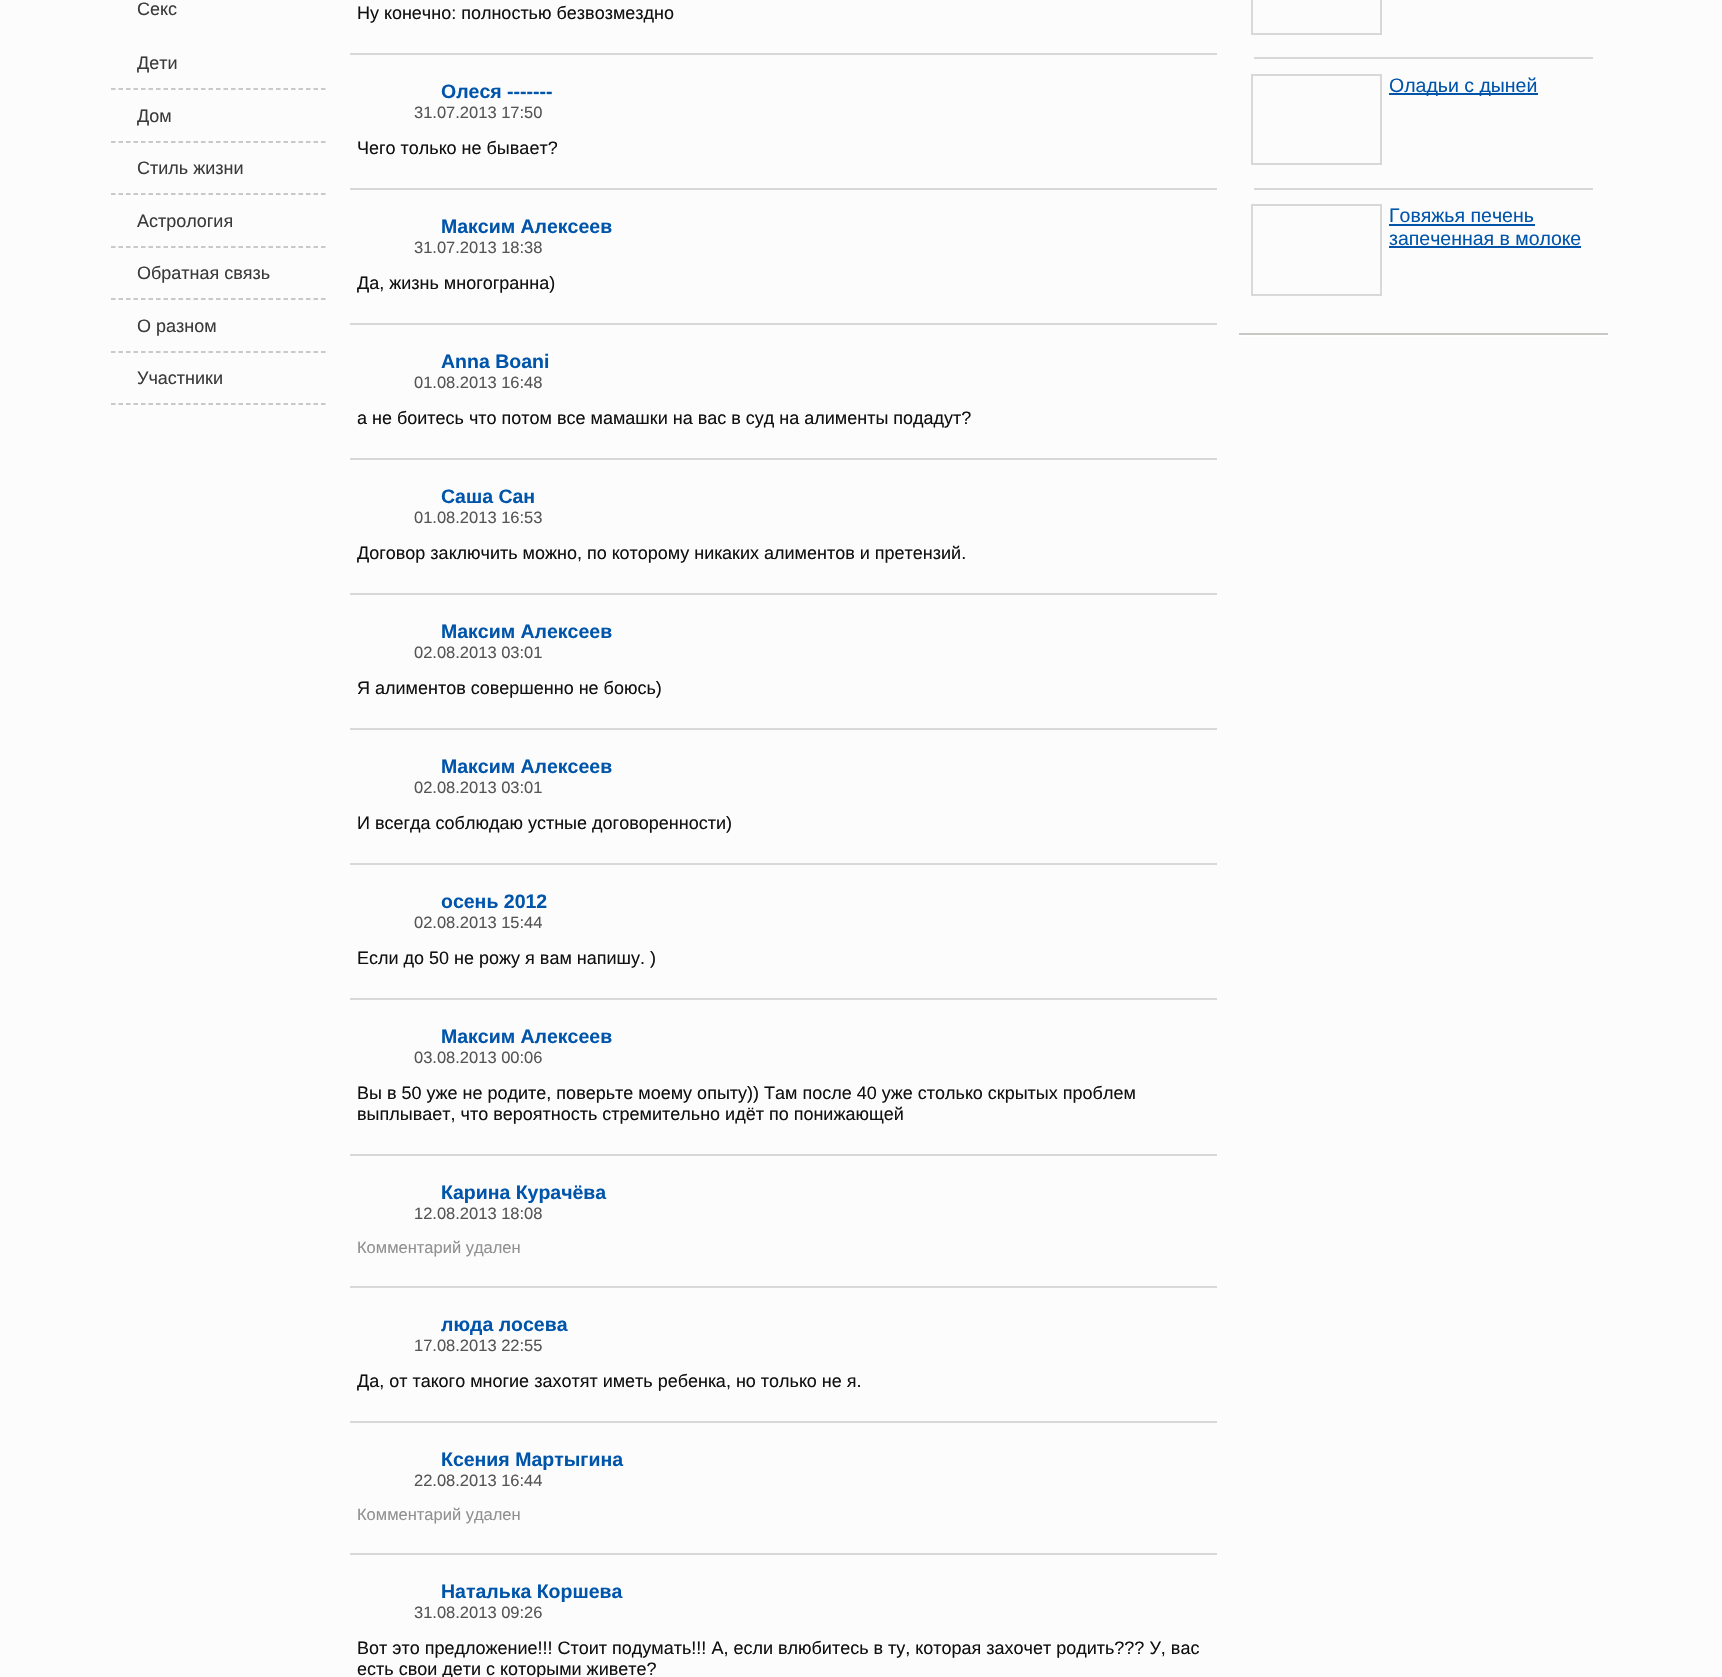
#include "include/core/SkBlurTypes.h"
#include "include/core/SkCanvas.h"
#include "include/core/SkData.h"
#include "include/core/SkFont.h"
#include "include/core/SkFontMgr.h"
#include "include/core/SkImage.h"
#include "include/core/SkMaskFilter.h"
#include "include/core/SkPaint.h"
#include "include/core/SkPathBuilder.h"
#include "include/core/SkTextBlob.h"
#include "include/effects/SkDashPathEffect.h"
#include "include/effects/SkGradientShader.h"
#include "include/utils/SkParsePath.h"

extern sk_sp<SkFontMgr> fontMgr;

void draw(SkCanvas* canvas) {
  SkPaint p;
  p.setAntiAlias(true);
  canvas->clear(SkColorSetRGB(252, 252, 252));
  p.setStyle(SkPaint::kStroke_Style);
  p.setStrokeWidth(1.5f);
  p.setColor(SkColorSetRGB(186, 185, 183));
  p.setPathEffect(SkDashPathEffect::Make({{4.5f, 3}}, 0));
  canvas->drawPath(SkPathBuilder().moveTo(111, 89).lineTo(325.5f, 89).detach(), p);
  p.setPathEffect(nullptr);
  p.setPathEffect(SkDashPathEffect::Make({{4.5f, 3}}, 0));
  canvas->drawPath(SkPathBuilder().moveTo(111, 142).lineTo(325.5f, 142).detach(), p);
  p.setPathEffect(nullptr);
  p.setPathEffect(SkDashPathEffect::Make({{4.5f, 3}}, 0));
  canvas->drawPath(SkPathBuilder().moveTo(111, 194).lineTo(325.5f, 194).detach(), p);
  p.setPathEffect(nullptr);
  p.setPathEffect(SkDashPathEffect::Make({{4.5f, 3}}, 0));
  canvas->drawPath(SkPathBuilder().moveTo(111, 247).lineTo(325.5f, 247).detach(), p);
  p.setPathEffect(nullptr);
  p.setPathEffect(SkDashPathEffect::Make({{4.5f, 3}}, 0));
  canvas->drawPath(SkPathBuilder().moveTo(111, 299).lineTo(325.5f, 299).detach(), p);
  p.setPathEffect(nullptr);
  p.setPathEffect(SkDashPathEffect::Make({{4.5f, 3}}, 0));
  canvas->drawPath(SkPathBuilder().moveTo(111, 352).lineTo(325.5f, 352).detach(), p);
  p.setPathEffect(nullptr);
  p.setPathEffect(SkDashPathEffect::Make({{4.5f, 3}}, 0));
  canvas->drawPath(SkPathBuilder().moveTo(111, 404).lineTo(325.5f, 404).detach(), p);
  p.setPathEffect(nullptr);
  p.setStyle(SkPaint::kFill_Style);
  p.setColor(SkColorSetRGB(216, 216, 216));
  canvas->drawRect(SkRect::MakeLTRB(350, 53, 1217, 55), p);
  canvas->drawRect(SkRect::MakeLTRB(350, 188, 1217, 190), p);
  canvas->drawRect(SkRect::MakeLTRB(350, 323, 1217, 325), p);
  canvas->drawRect(SkRect::MakeLTRB(350, 458, 1217, 460), p);
  canvas->drawRect(SkRect::MakeLTRB(350, 593, 1217, 595), p);
  canvas->drawRect(SkRect::MakeLTRB(350, 728, 1217, 730), p);
  canvas->drawRect(SkRect::MakeLTRB(350, 863, 1217, 865), p);
  canvas->drawRect(SkRect::MakeLTRB(350, 998, 1217, 1000), p);
  canvas->drawRect(SkRect::MakeLTRB(350, 1154, 1217, 1156), p);
  canvas->drawRect(SkRect::MakeLTRB(350, 1286, 1217, 1288), p);
  canvas->drawRect(SkRect::MakeLTRB(350, 1421, 1217, 1423), p);
  canvas->drawRect(SkRect::MakeLTRB(350, 1553, 1217, 1555), p);
  p.setStyle(SkPaint::kStroke_Style);
  p.setStrokeWidth(2);
  canvas->drawRect(SkRect::MakeLTRB(1252, -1, 1381, 34), p);
  p.setStyle(SkPaint::kFill_Style);
  canvas->drawRect(SkRect::MakeLTRB(1254, 57, 1593, 59), p);
  p.setStyle(SkPaint::kStroke_Style);
  canvas->drawRect(SkRect::MakeLTRB(1252, 75, 1381, 164), p);
  p.setStyle(SkPaint::kFill_Style);
  p.setColor(SkColorSetRGB(0, 85, 170));
  canvas->drawRect(SkRect::MakeLTRB(1389, 93, 1538, 95), p);
  p.setColor(SkColorSetRGB(216, 216, 216));
  canvas->drawRect(SkRect::MakeLTRB(1254, 188, 1593, 190), p);
  p.setStyle(SkPaint::kStroke_Style);
  canvas->drawRect(SkRect::MakeLTRB(1252, 205, 1381, 295), p);
  p.setStyle(SkPaint::kFill_Style);
  p.setColor(SkColorSetRGB(0, 85, 170));
  canvas->drawRect(SkRect::MakeLTRB(1389, 224, 1535, 226), p);
  canvas->drawRect(SkRect::MakeLTRB(1389, 246, 1581, 248), p);
  p.setColor(SkColorSetRGB(200, 199, 196));
  canvas->drawRect(SkRect::MakeLTRB(1239, 333, 1608, 335), p);
  p.setColor(SK_ColorWHITE);
  canvas->drawRect(SkRect::MakeLTRB(1239, 335, 1608, 337), p);
  SkFont font1(fontMgr->matchFamilyStyle("Liberation Sans", SkFontStyle::Normal()), 18);
  font1.setSubpixel(true);
  p.setColor(SkColorSetRGB(59, 59, 59));
  canvas->drawString("Секс", 137, 15, font1, p);
  canvas->drawString("Дети", 137, 69, font1, p);
  canvas->drawString("Дом", 137, 122, font1, p);
  canvas->drawString("Стиль жизни", 137, 174, font1, p);
  canvas->drawString("Астрология", 137, 227, font1, p);
  canvas->drawString("Обратная связь", 137, 279, font1, p);
  canvas->drawString("О разном", 137, 332, font1, p);
  canvas->drawString("Участники", 137, 384, font1, p);
  p.setColor(SkColorSetRGB(17, 17, 17));
  canvas->drawString("Ну конечно: полностью безвозмездно", 357, 19, font1, p);
  SkFont font2(fontMgr->matchFamilyStyle("Liberation Sans", SkFontStyle::Bold()), 19.5f);
  font2.setSubpixel(true);
  p.setColor(SkColorSetRGB(0, 85, 170));
  canvas->drawString("Олеся -------", 441, 98, font2, p);
  SkFont font3(fontMgr->matchFamilyStyle("Liberation Sans", SkFontStyle::Normal()), 16.5f);
  font3.setSubpixel(true);
  p.setColor(SkColorSetRGB(85, 85, 85));
  canvas->drawString("31.07.2013 17:50", 414, 118, font3, p);
  p.setColor(SkColorSetRGB(17, 17, 17));
  canvas->drawString("Чего только не бывает?", 357, 154, font1, p);
  p.setColor(SkColorSetRGB(0, 85, 170));
  canvas->drawString("Максим Алексеев", 441, 233, font2, p);
  p.setColor(SkColorSetRGB(85, 85, 85));
  canvas->drawString("31.07.2013 18:38", 414, 253, font3, p);
  p.setColor(SkColorSetRGB(17, 17, 17));
  canvas->drawString("Да, жизнь многогранна)", 357, 289, font1, p);
  p.setColor(SkColorSetRGB(0, 85, 170));
  canvas->drawString("Anna Boani", 441, 368, font2, p);
  p.setColor(SkColorSetRGB(85, 85, 85));
  canvas->drawString("01.08.2013 16:48", 414, 388, font3, p);
  p.setColor(SkColorSetRGB(17, 17, 17));
  canvas->drawString("а не боитесь что потом все мамашки на вас в суд на алименты подадут?", 357, 424, font1, p);
  p.setColor(SkColorSetRGB(0, 85, 170));
  canvas->drawString("Саша Сан", 441, 503, font2, p);
  p.setColor(SkColorSetRGB(85, 85, 85));
  canvas->drawString("01.08.2013 16:53", 414, 523, font3, p);
  p.setColor(SkColorSetRGB(17, 17, 17));
  canvas->drawString("Договор заключить можно, по которому никаких алиментов и претензий.", 357, 559, font1, p);
  p.setColor(SkColorSetRGB(0, 85, 170));
  canvas->drawString("Максим Алексеев", 441, 638, font2, p);
  p.setColor(SkColorSetRGB(85, 85, 85));
  canvas->drawString("02.08.2013 03:01", 414, 658, font3, p);
  p.setColor(SkColorSetRGB(17, 17, 17));
  canvas->drawString("Я алиментов совершенно не боюсь)", 357, 694, font1, p);
  p.setColor(SkColorSetRGB(0, 85, 170));
  canvas->drawString("Максим Алексеев", 441, 773, font2, p);
  p.setColor(SkColorSetRGB(85, 85, 85));
  canvas->drawString("02.08.2013 03:01", 414, 793, font3, p);
  p.setColor(SkColorSetRGB(17, 17, 17));
  canvas->drawString("И всегда соблюдаю устные договоренности)", 357, 829, font1, p);
  p.setColor(SkColorSetRGB(0, 85, 170));
  canvas->drawString("осень 2012", 441, 908, font2, p);
  p.setColor(SkColorSetRGB(85, 85, 85));
  canvas->drawString("02.08.2013 15:44", 414, 928, font3, p);
  p.setColor(SkColorSetRGB(17, 17, 17));
  canvas->drawString("Если до 50 не рожу я вам напишу. )", 357, 964, font1, p);
  p.setColor(SkColorSetRGB(0, 85, 170));
  canvas->drawString("Максим Алексеев", 441, 1043, font2, p);
  p.setColor(SkColorSetRGB(85, 85, 85));
  canvas->drawString("03.08.2013 00:06", 414, 1063, font3, p);
  p.setColor(SkColorSetRGB(17, 17, 17));
  canvas->drawString("Вы в 50 уже не родите, поверьте моему опыту)) Там после 40 уже столько скрытых проблем", 357, 1099, font1, p);
  canvas->drawString("выплывает, что вероятность стремительно идёт по понижающей", 357, 1120, font1, p);
  p.setColor(SkColorSetRGB(0, 85, 170));
  canvas->drawString("Карина Курачёва", 441, 1199, font2, p);
  p.setColor(SkColorSetRGB(85, 85, 85));
  canvas->drawString("12.08.2013 18:08", 414, 1219, font3, p);
  p.setColor(SkColorSetRGB(144, 144, 144));
  canvas->drawString("Комментарий удален", 357, 1253, font3, p);
  p.setColor(SkColorSetRGB(0, 85, 170));
  canvas->drawString("люда лосева", 441, 1331, font2, p);
  p.setColor(SkColorSetRGB(85, 85, 85));
  canvas->drawString("17.08.2013 22:55", 414, 1351, font3, p);
  p.setColor(SkColorSetRGB(17, 17, 17));
  canvas->drawString("Да, от такого многие захотят иметь ребенка, но только не я.", 357, 1387, font1, p);
  p.setColor(SkColorSetRGB(0, 85, 170));
  canvas->drawString("Ксения Мартыгина", 441, 1466, font2, p);
  p.setColor(SkColorSetRGB(85, 85, 85));
  canvas->drawString("22.08.2013 16:44", 414, 1486, font3, p);
  p.setColor(SkColorSetRGB(144, 144, 144));
  canvas->drawString("Комментарий удален", 357, 1520, font3, p);
  p.setColor(SkColorSetRGB(0, 85, 170));
  canvas->drawString("Наталька Коршева", 441, 1598, font2, p);
  p.setColor(SkColorSetRGB(85, 85, 85));
  canvas->drawString("31.08.2013 09:26", 414, 1618, font3, p);
  p.setColor(SkColorSetRGB(17, 17, 17));
  canvas->drawString("Вот это предложение!!! Стоит подумать!!! А, если влюбитесь в ту, которая захочет родить?\077? У, вас", 357, 1654, font1, p);
  canvas->drawString("есть свои дети с которыми живете?", 357, 1675, font1, p);
  SkFont font4(fontMgr->matchFamilyStyle("Liberation Sans", SkFontStyle::Normal()), 19.5f);
  font4.setSubpixel(true);
  p.setColor(SkColorSetRGB(0, 85, 170));
  canvas->drawString("Оладьи с дыней", 1389, 92, font4, p);
  canvas->drawString("Говяжья печень", 1389, 222, font4, p);
  canvas->drawString("запеченная в молоке", 1389, 245, font4, p);
}
